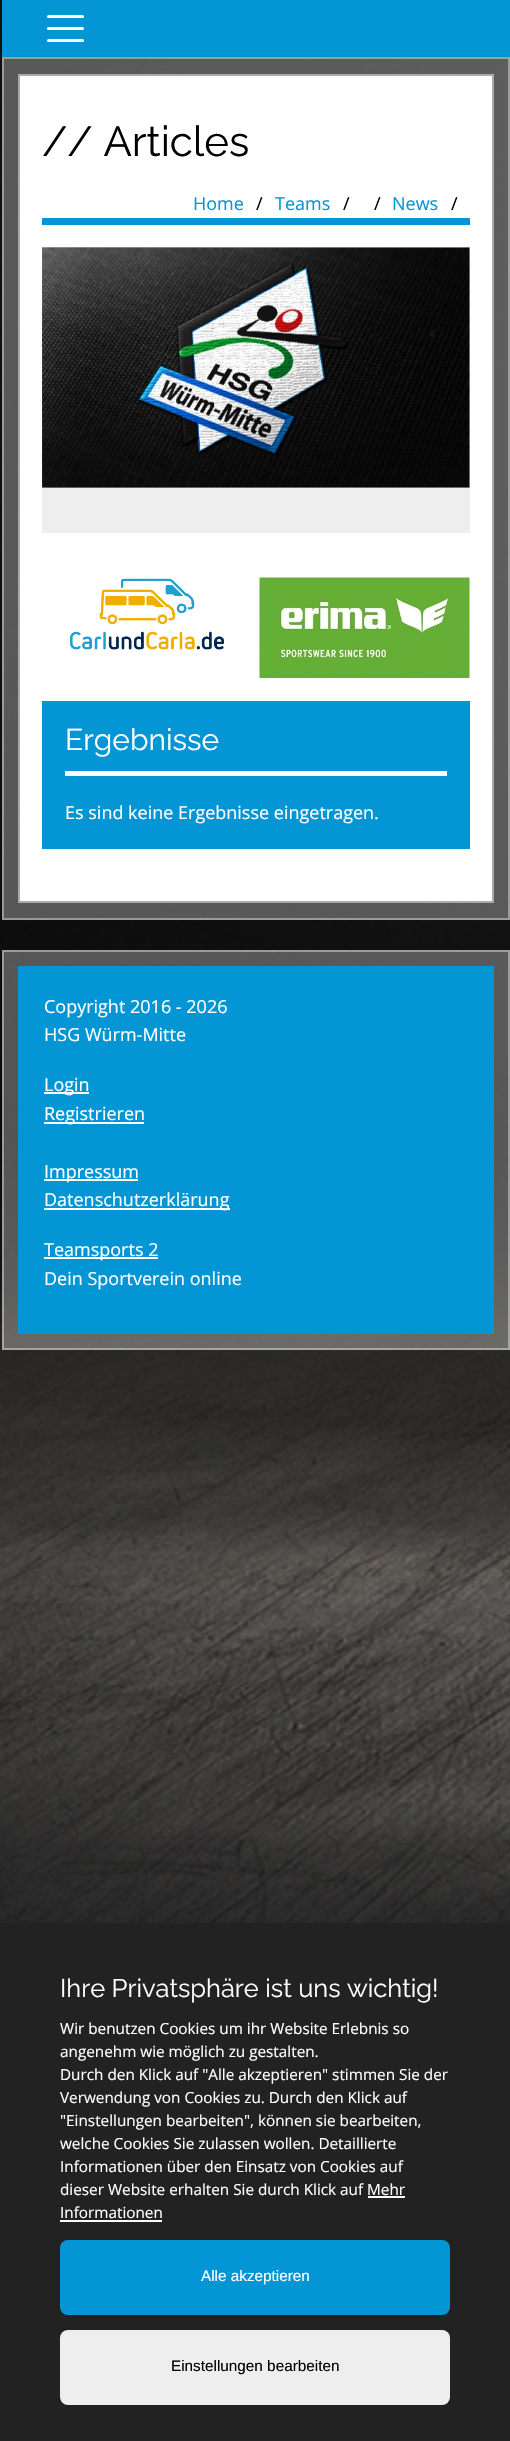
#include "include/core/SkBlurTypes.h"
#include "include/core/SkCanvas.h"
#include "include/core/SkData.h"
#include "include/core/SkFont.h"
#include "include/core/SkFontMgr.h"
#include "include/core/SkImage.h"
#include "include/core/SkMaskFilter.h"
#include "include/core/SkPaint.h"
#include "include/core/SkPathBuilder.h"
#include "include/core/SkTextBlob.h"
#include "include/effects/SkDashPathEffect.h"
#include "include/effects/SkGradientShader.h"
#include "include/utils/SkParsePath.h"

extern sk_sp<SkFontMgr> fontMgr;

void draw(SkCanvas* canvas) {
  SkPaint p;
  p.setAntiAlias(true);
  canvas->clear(SK_ColorWHITE);
  canvas->drawImageRect(SkImages::DeferredFromEncodedData(SkData::MakeFromFileName("images/1.png")), SkRect::MakeLTRB(0, 0, 510, 1923), SkSamplingOptions());
  p.setColor(SkColorSetRGB(4, 149, 213));
  canvas->drawRect(SkRect::MakeLTRB(2, 0, 510, 57), p);
  p.setColor(SK_ColorWHITE);
  canvas->drawRoundRect(SkRect::MakeLTRB(47, 15, 84, 18), 1.5f, 1.5f, p);
  canvas->drawRoundRect(SkRect::MakeLTRB(47, 27, 84, 30), 1.5f, 1.5f, p);
  canvas->drawRoundRect(SkRect::MakeLTRB(47, 39, 84, 42), 1.5f, 1.5f, p);
  p.setColor(SkColorSetARGB(77, 255, 255, 255));
  canvas->drawRect(SkRect::MakeLTRB(2, 57, 510, 920), p);
  p.setStyle(SkPaint::kStroke_Style);
  p.setStrokeWidth(2);
  p.setColor(SkColorSetARGB(102, 255, 255, 255));
  canvas->drawRect(SkRect::MakeLTRB(3, 58, 509, 919), p);
  p.setStyle(SkPaint::kFill_Style);
  p.setColor(SK_ColorWHITE);
  canvas->drawRect(SkRect::MakeLTRB(19, 75, 493, 902), p);
  p.setStyle(SkPaint::kStroke_Style);
  p.setColor(SkColorSetRGB(170, 170, 170));
  canvas->drawRect(SkRect::MakeLTRB(19, 75, 493, 902), p);
  p.setStyle(SkPaint::kFill_Style);
  p.setColor(SkColorSetRGB(4, 149, 213));
  canvas->drawRect(SkRect::MakeLTRB(42, 218, 470, 225), p);
  p.setColor(SkColorSetRGB(238, 238, 238));
  canvas->drawRect(SkRect::MakeLTRB(42, 248, 470, 533), p);
  canvas->drawImageRect(SkImages::DeferredFromEncodedData(SkData::MakeFromFileName("images/2.png")), SkRect::MakeLTRB(42, 247, 470, 488), SkSamplingOptions());
  canvas->drawImageRect(SkImages::DeferredFromEncodedData(SkData::MakeFromFileName("images/3.png")), SkRect::MakeLTRB(42, 247, 470, 488), SkSamplingOptions());
  canvas->drawImageRect(SkImages::DeferredFromEncodedData(SkData::MakeFromFileName("images/4.png")), SkRect::MakeLTRB(70, 578, 224, 650), SkSamplingOptions());
  canvas->drawImageRect(SkImages::DeferredFromEncodedData(SkData::MakeFromFileName("images/5.png")), SkRect::MakeLTRB(259, 577, 470, 678), SkSamplingOptions());
  p.setColor(SkColorSetRGB(4, 149, 213));
  canvas->drawRect(SkRect::MakeLTRB(42, 701, 470, 849), p);
  p.setColor(SK_ColorWHITE);
  canvas->drawRect(SkRect::MakeLTRB(65, 771, 447, 776), p);
  p.setColor(SkColorSetARGB(77, 255, 255, 255));
  canvas->drawRect(SkRect::MakeLTRB(2, 950, 510, 1350), p);
  p.setStyle(SkPaint::kStroke_Style);
  p.setColor(SkColorSetARGB(102, 255, 255, 255));
  canvas->drawRect(SkRect::MakeLTRB(3, 951, 509, 1349), p);
  p.setStyle(SkPaint::kFill_Style);
  p.setColor(SkColorSetRGB(4, 149, 213));
  canvas->drawRect(SkRect::MakeLTRB(18, 966, 494, 1334), p);
  p.setColor(SK_ColorWHITE);
  canvas->drawRect(SkRect::MakeLTRB(44, 1092, 89, 1094), p);
  canvas->drawRect(SkRect::MakeLTRB(44, 1122, 144, 1124), p);
  canvas->drawRect(SkRect::MakeLTRB(44, 1179, 138, 1181), p);
  canvas->drawRect(SkRect::MakeLTRB(44, 1208, 230, 1210), p);
  canvas->drawRect(SkRect::MakeLTRB(44, 1257, 158, 1259), p);
  p.setColor(SkColorSetRGB(34, 34, 34));
  canvas->drawRect(SkRect::MakeLTRB(0, 1923, 510, 2441), p);
  p.setColor(SK_ColorWHITE);
  canvas->drawRect(SkRect::MakeLTRB(368, 2196, 405, 2198), p);
  canvas->drawRect(SkRect::MakeLTRB(60, 2220, 162, 2222), p);
  p.setColor(SkColorSetRGB(4, 149, 213));
  canvas->drawRoundRect(SkRect::MakeLTRB(60, 2240, 450, 2315), 8, 8, p);
  p.setColor(SkColorSetRGB(238, 238, 238));
  canvas->drawRoundRect(SkRect::MakeLTRB(60, 2330, 450, 2405), 8, 8, p);
  SkFont font1(fontMgr->matchFamilyStyle("Raleway", SkFontStyle::Normal()), 42);
  font1.setSubpixel(true);
  p.setColor(SK_ColorBLACK);
  canvas->drawString("// Articles", 42, 156, font1, p);
  SkFont font2(fontMgr->matchFamilyStyle("Open Sans", SkFontStyle::Normal()), 18);
  font2.setSubpixel(true);
  p.setColor(SkColorSetRGB(4, 149, 213));
  canvas->drawString("Home", 193, 210, font2, p);
  p.setColor(SK_ColorBLACK);
  canvas->drawString("/", 256, 210, font2, p);
  p.setColor(SkColorSetRGB(4, 149, 213));
  canvas->drawString("Teams", 275, 210, font2, p);
  p.setColor(SK_ColorBLACK);
  canvas->drawString("/", 343, 210, font2, p);
  canvas->drawString("/", 374, 210, font2, p);
  p.setColor(SkColorSetRGB(4, 149, 213));
  canvas->drawString("News", 392, 210, font2, p);
  p.setColor(SK_ColorBLACK);
  canvas->drawString("/", 451, 210, font2, p);
  SkFont font3(fontMgr->matchFamilyStyle("Raleway", SkFontStyle::Normal()), 30);
  font3.setSubpixel(true);
  p.setColor(SK_ColorWHITE);
  canvas->drawString("Ergebnisse", 65, 750, font3, p);
  canvas->drawString("Es sind keine Ergebnisse eingetragen.", 65, 819, font2, p);
  canvas->drawString("Copyright 2016 - 2026", 44, 1013, font2, p);
  canvas->drawString("HSG Würm-Mitte", 44, 1041, font2, p);
  canvas->drawString("Login", 44, 1091, font2, p);
  canvas->drawString("Registrieren", 44, 1120, font2, p);
  canvas->drawString("Impressum", 44, 1178, font2, p);
  canvas->drawString("Datenschutzerklärung", 44, 1206, font2, p);
  canvas->drawString("Teamsports 2", 44, 1256, font2, p);
  canvas->drawString("Dein Sportverein online", 44, 1285, font2, p);
  SkFont font4(fontMgr->matchFamilyStyle("Raleway", SkFontStyle::Normal()), 25.5f);
  font4.setSubpixel(true);
  canvas->drawString("Ihre Privatsphäre ist uns wichtig!", 60, 1997, font4, p);
  SkFont font5(fontMgr->matchFamilyStyle("Open Sans", SkFontStyle::Normal()), 15.3f);
  font5.setSubpixel(true);
  canvas->drawString("Wir benutzen Cookies um ihr Website Erlebnis so", 60, 2034, font5, p);
  canvas->drawString("angenehm wie möglich zu gestalten.", 60, 2057, font5, p);
  canvas->drawString("Durch den Klick auf \"Alle akzeptieren\" stimmen Sie der", 60, 2080, font5, p);
  canvas->drawString("Verwendung von Cookies zu. Durch den Klick auf", 60, 2103, font5, p);
  canvas->drawString("\"Einstellungen bearbeiten\", können sie bearbeiten,", 60, 2126, font5, p);
  canvas->drawString("welche Cookies Sie zulassen wollen. Detaillierte", 60, 2149, font5, p);
  canvas->drawString("Informationen über den Einsatz von Cookies auf", 60, 2172, font5, p);
  canvas->drawString("dieser Website erhalten Sie durch Klick auf Mehr", 60, 2195, font5, p);
  canvas->drawString("Informationen", 60, 2218, font5, p);
  SkFont font6(fontMgr->matchFamilyStyle("Liberation Sans", SkFontStyle::Normal()), 15.3f);
  font6.setSubpixel(true);
  canvas->drawString("Alle akzeptieren", 201, 2281, font6, p);
  p.setColor(SK_ColorBLACK);
  canvas->drawString("Einstellungen bearbeiten", 171, 2371, font6, p);
}
